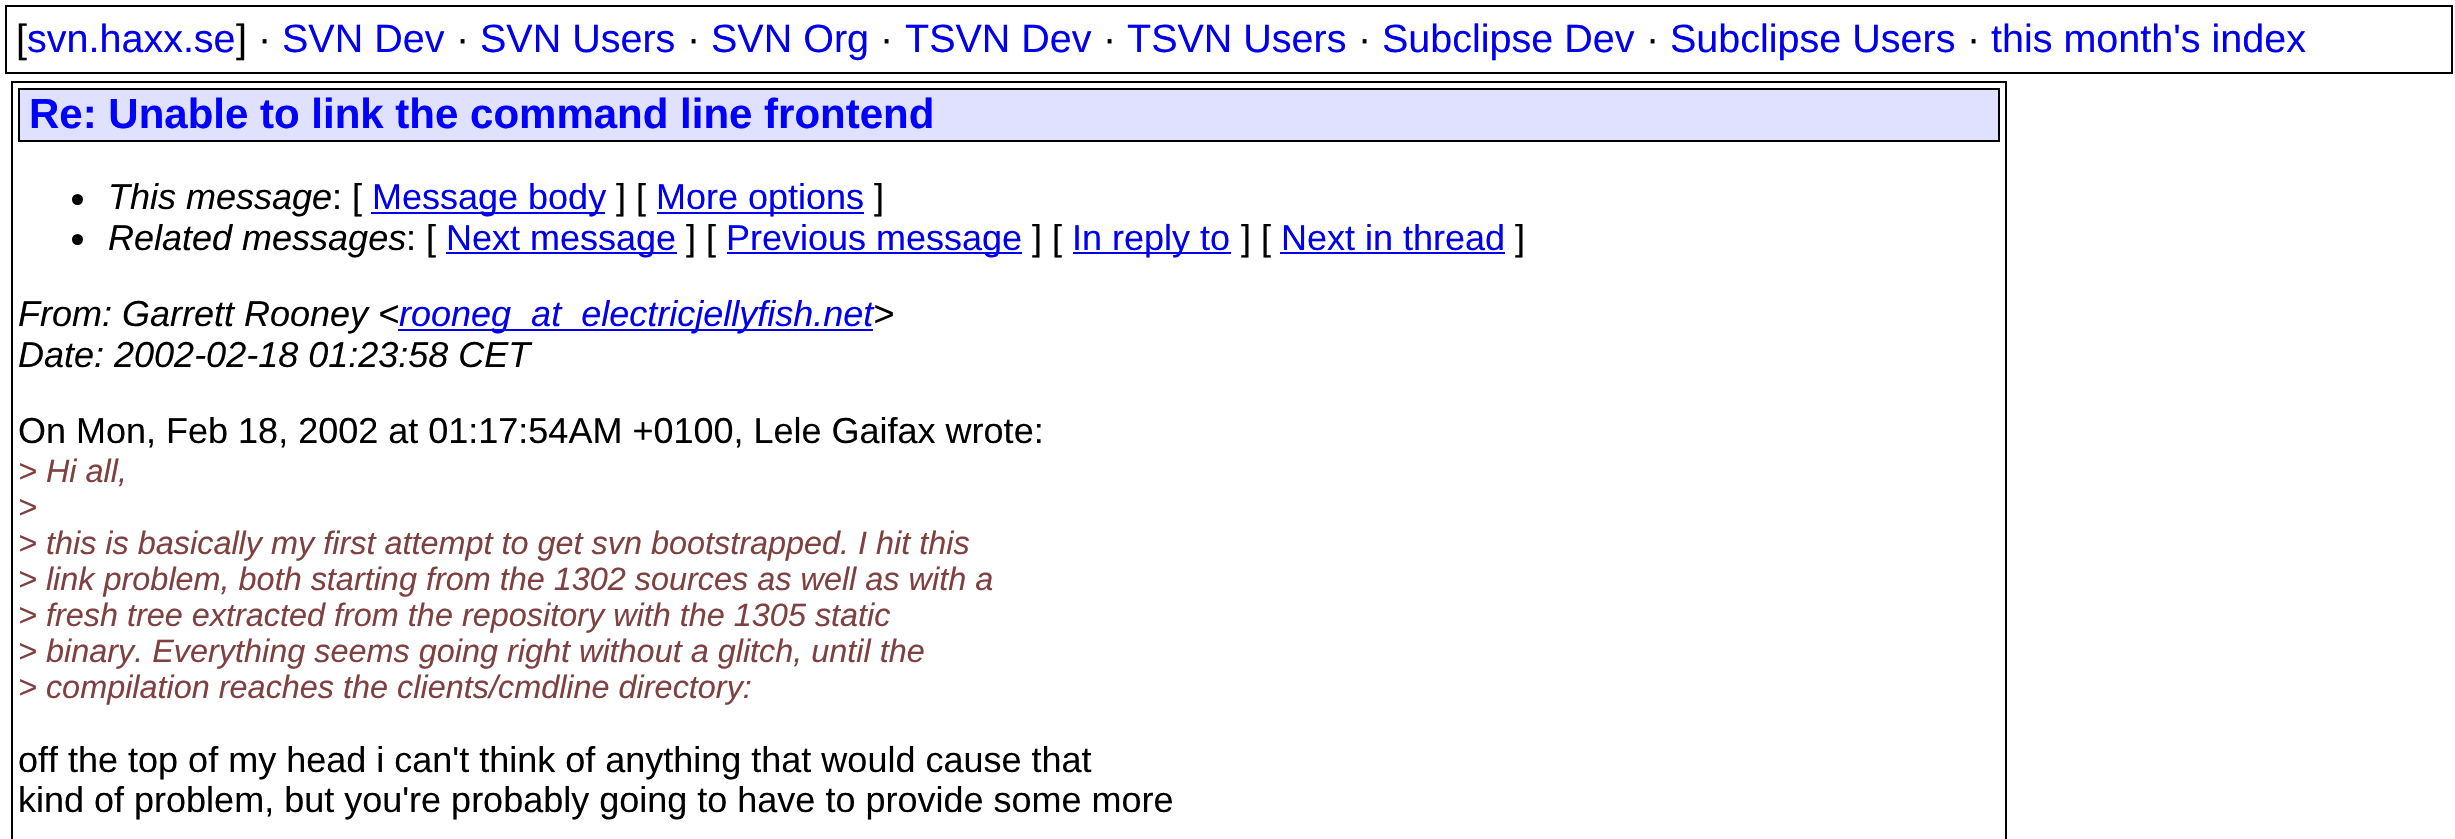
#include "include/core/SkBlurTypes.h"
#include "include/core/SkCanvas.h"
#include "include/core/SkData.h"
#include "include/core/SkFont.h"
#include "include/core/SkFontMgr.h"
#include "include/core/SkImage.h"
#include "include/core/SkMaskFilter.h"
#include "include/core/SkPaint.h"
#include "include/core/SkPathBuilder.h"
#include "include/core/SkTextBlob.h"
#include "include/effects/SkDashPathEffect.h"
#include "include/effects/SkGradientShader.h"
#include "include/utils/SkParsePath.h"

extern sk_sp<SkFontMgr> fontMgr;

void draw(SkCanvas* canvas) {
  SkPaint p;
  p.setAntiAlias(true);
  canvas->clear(SK_ColorWHITE);
  p.setStyle(SkPaint::kStroke_Style);
  p.setStrokeWidth(2);
  p.setColor(SK_ColorBLACK);
  canvas->drawRect(SkRect::MakeLTRB(6, 6, 2452, 73), p);
  canvas->drawRect(SkRect::MakeLTRB(12, 82, 2006, 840), p);
  p.setStyle(SkPaint::kFill_Style);
  p.setColor(SkColorSetRGB(224, 224, 255));
  canvas->drawRect(SkRect::MakeLTRB(19, 89, 1999, 141), p);
  p.setStyle(SkPaint::kStroke_Style);
  p.setColor(SK_ColorBLACK);
  canvas->drawRect(SkRect::MakeLTRB(19, 89, 1999, 141), p);
  p.setStyle(SkPaint::kFill_Style);
  canvas->drawCircle(77.5f, 199.5f, 5.5f, p);
  p.setColor(SkColorSetRGB(0, 0, 238));
  canvas->drawRect(SkRect::MakeLTRB(371, 212, 605, 214), p);
  canvas->drawRect(SkRect::MakeLTRB(657, 212, 864, 214), p);
  p.setColor(SK_ColorBLACK);
  canvas->drawCircle(77.5f, 239.5f, 5.5f, p);
  p.setColor(SkColorSetRGB(0, 0, 238));
  canvas->drawRect(SkRect::MakeLTRB(446, 252, 677, 254), p);
  canvas->drawRect(SkRect::MakeLTRB(727, 252, 1022, 254), p);
  canvas->drawRect(SkRect::MakeLTRB(1073, 252, 1231, 254), p);
  canvas->drawRect(SkRect::MakeLTRB(1280, 252, 1505, 254), p);
  canvas->drawRect(SkRect::MakeLTRB(398, 329, 873, 331), p);
  SkFont font1(fontMgr->matchFamilyStyle("Liberation Sans", SkFontStyle::Normal()), 39.5f);
  font1.setSubpixel(true);
  p.setColor(SK_ColorBLACK);
  canvas->drawString("[", 16, 52, font1, p);
  p.setColor(SkColorSetRGB(0, 0, 238));
  canvas->drawString("svn.haxx.se", 27, 52, font1, p);
  p.setColor(SK_ColorBLACK);
  canvas->drawString("] ·", 236, 52, font1, p);
  p.setColor(SkColorSetRGB(0, 0, 238));
  canvas->drawString("SVN Dev", 282, 52, font1, p);
  p.setColor(SK_ColorBLACK);
  canvas->drawString("·", 456, 52, font1, p);
  p.setColor(SkColorSetRGB(0, 0, 238));
  canvas->drawString("SVN Users", 480, 52, font1, p);
  p.setColor(SK_ColorBLACK);
  canvas->drawString("·", 687, 52, font1, p);
  p.setColor(SkColorSetRGB(0, 0, 238));
  canvas->drawString("SVN Org", 711, 52, font1, p);
  p.setColor(SK_ColorBLACK);
  canvas->drawString("·", 880, 52, font1, p);
  p.setColor(SkColorSetRGB(0, 0, 238));
  canvas->drawString("TSVN Dev", 905, 52, font1, p);
  p.setColor(SK_ColorBLACK);
  canvas->drawString("·", 1103, 52, font1, p);
  p.setColor(SkColorSetRGB(0, 0, 238));
  canvas->drawString("TSVN Users", 1127, 52, font1, p);
  p.setColor(SK_ColorBLACK);
  canvas->drawString("·", 1358, 52, font1, p);
  p.setColor(SkColorSetRGB(0, 0, 238));
  canvas->drawString("Subclipse Dev", 1382, 52, font1, p);
  p.setColor(SK_ColorBLACK);
  canvas->drawString("·", 1646, 52, font1, p);
  p.setColor(SkColorSetRGB(0, 0, 238));
  canvas->drawString("Subclipse Users", 1670, 52, font1, p);
  p.setColor(SK_ColorBLACK);
  canvas->drawString("·", 1967, 52, font1, p);
  p.setColor(SkColorSetRGB(0, 0, 238));
  canvas->drawString("this month's index", 1991, 52, font1, p);
  SkFont font2(fontMgr->matchFamilyStyle("Liberation Sans", SkFontStyle::Bold()), 42);
  font2.setSubpixel(true);
  p.setColor(SkColorSetRGB(0, 0, 255));
  canvas->drawString("Re: Unable to link the command line frontend", 29, 128, font2, p);
  SkFont font3(fontMgr->matchFamilyStyle("Liberation Sans", SkFontStyle::Italic()), 36);
  font3.setSubpixel(true);
  p.setColor(SK_ColorBLACK);
  canvas->drawString("This message", 108, 209, font3, p);
  SkFont font4(fontMgr->matchFamilyStyle("Liberation Sans", SkFontStyle::Normal()), 36);
  font4.setSubpixel(true);
  canvas->drawString(": [", 332, 209, font4, p);
  p.setColor(SkColorSetRGB(0, 0, 238));
  canvas->drawString("Message body", 372, 209, font4, p);
  p.setColor(SK_ColorBLACK);
  canvas->drawString("] [", 616, 209, font4, p);
  p.setColor(SkColorSetRGB(0, 0, 238));
  canvas->drawString("More options", 656, 209, font4, p);
  p.setColor(SK_ColorBLACK);
  canvas->drawString("]", 874, 209, font4, p);
  canvas->drawString("Related messages", 108, 250, font3, p);
  canvas->drawString(": [", 406, 250, font4, p);
  p.setColor(SkColorSetRGB(0, 0, 238));
  canvas->drawString("Next message", 446, 250, font4, p);
  p.setColor(SK_ColorBLACK);
  canvas->drawString("] [", 686, 250, font4, p);
  p.setColor(SkColorSetRGB(0, 0, 238));
  canvas->drawString("Previous message", 726, 250, font4, p);
  p.setColor(SK_ColorBLACK);
  canvas->drawString("] [", 1032, 250, font4, p);
  p.setColor(SkColorSetRGB(0, 0, 238));
  canvas->drawString("In reply to", 1072, 250, font4, p);
  p.setColor(SK_ColorBLACK);
  canvas->drawString("] [", 1241, 250, font4, p);
  p.setColor(SkColorSetRGB(0, 0, 238));
  canvas->drawString("Next in thread", 1281, 250, font4, p);
  p.setColor(SK_ColorBLACK);
  canvas->drawString("]", 1515, 250, font4, p);
  canvas->drawString("From: Garrett Rooney <", 18, 326, font3, p);
  p.setColor(SkColorSetRGB(0, 0, 238));
  canvas->drawString("rooneg_at_electricjellyfish.net", 399, 326, font3, p);
  p.setColor(SK_ColorBLACK);
  canvas->drawString(">", 873, 326, font3, p);
  canvas->drawString("Date: 2002-02-18 01:23:58 CET", 18, 367, font3, p);
  canvas->drawString("On Mon, Feb 18, 2002 at 01:17:54AM +0100, Lele Gaifax wrote:", 18, 443, font4, p);
  SkFont font5(fontMgr->matchFamilyStyle("Liberation Sans", SkFontStyle::Italic()), 32.4f);
  font5.setSubpixel(true);
  p.setColor(SkColorSetRGB(128, 64, 64));
  canvas->drawString("> Hi all,", 18, 482, font5, p);
  canvas->drawString(">", 18, 518, font5, p);
  canvas->drawString("> this is basically my first attempt to get svn bootstrapped. I hit this", 18, 554, font5, p);
  canvas->drawString("> link problem, both starting from the 1302 sources as well as with a", 18, 590, font5, p);
  canvas->drawString("> fresh tree extracted from the repository with the 1305 static", 18, 626, font5, p);
  canvas->drawString("> binary. Everything seems going right without a glitch, until the", 18, 662, font5, p);
  canvas->drawString("> compilation reaches the clients/cmdline directory:", 18, 698, font5, p);
  p.setColor(SK_ColorBLACK);
  canvas->drawString("off the top of my head i can't think of anything that would cause that", 18, 772, font4, p);
  canvas->drawString("kind of problem, but you're probably going to have to provide some more", 18, 812, font4, p);
}
